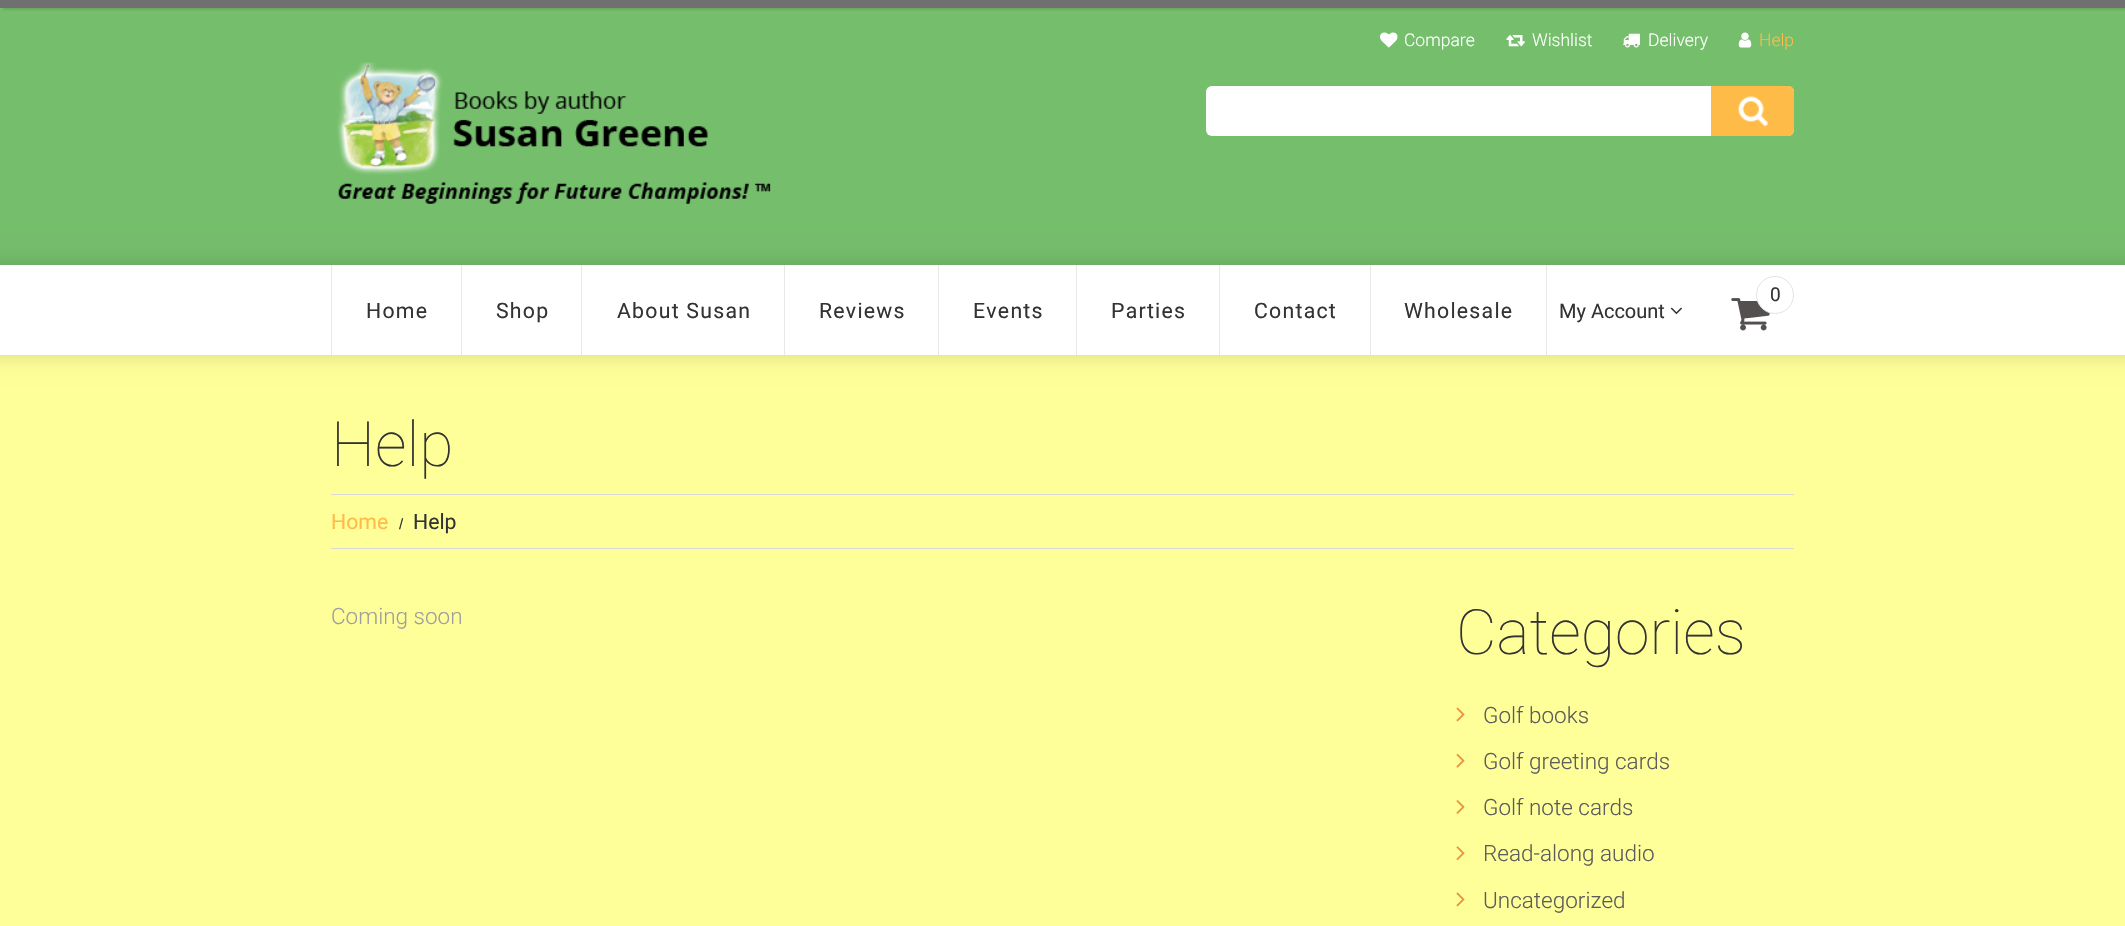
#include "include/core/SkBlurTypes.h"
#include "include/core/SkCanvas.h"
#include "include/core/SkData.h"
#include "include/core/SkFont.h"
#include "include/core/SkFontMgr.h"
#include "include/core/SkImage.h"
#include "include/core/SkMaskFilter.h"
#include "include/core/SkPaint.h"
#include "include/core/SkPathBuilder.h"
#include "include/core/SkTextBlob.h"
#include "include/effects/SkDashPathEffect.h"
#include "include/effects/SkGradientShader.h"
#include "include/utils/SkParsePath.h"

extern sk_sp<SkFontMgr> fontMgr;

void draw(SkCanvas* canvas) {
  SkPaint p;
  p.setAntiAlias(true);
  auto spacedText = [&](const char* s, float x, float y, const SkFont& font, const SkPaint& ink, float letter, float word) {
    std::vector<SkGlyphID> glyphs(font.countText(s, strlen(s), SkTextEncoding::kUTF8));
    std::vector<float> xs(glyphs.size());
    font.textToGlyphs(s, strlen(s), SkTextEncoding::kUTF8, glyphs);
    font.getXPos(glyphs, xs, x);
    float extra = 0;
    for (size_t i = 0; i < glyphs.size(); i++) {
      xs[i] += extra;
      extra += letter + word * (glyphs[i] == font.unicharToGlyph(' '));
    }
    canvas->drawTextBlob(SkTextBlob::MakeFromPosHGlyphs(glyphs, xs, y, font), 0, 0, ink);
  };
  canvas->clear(SkColorSetRGB(117, 190, 108));
  p.setColor(SkColorSetARGB(26, 0, 0, 0));
  p.setMaskFilter(SkMaskFilter::MakeBlur(kNormal_SkBlurStyle, 1));
  canvas->drawRect(SkRect::MakeLTRB(3, 3, 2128, 10), p);
  p.setMaskFilter(nullptr);
  p.setColor(SkColorSetRGB(112, 112, 112));
  canvas->drawRect(SkRect::MakeLTRB(0, 0, 2125, 8), p);
  canvas->drawImageRect(SkImages::DeferredFromEncodedData(SkData::MakeFromFileName("images/1.png")), SkRect::MakeLTRB(1380, 32, 1398, 48), SkSamplingOptions());
  canvas->drawImageRect(SkImages::DeferredFromEncodedData(SkData::MakeFromFileName("images/2.png")), SkRect::MakeLTRB(1506, 35, 1525, 47), SkSamplingOptions());
  canvas->drawImageRect(SkImages::DeferredFromEncodedData(SkData::MakeFromFileName("images/3.png")), SkRect::MakeLTRB(1623, 33, 1640, 48), SkSamplingOptions());
  canvas->drawImageRect(SkImages::DeferredFromEncodedData(SkData::MakeFromFileName("images/4.png")), SkRect::MakeLTRB(1738, 32, 1752, 48), SkSamplingOptions());
  p.setColor(SK_ColorWHITE);
  canvas->drawRoundRect(SkRect::MakeLTRB(1206, 86, 1794, 136), 6, 6, p);
  p.setColor(SkColorSetRGB(255, 187, 72));
  canvas->drawPath(SkPathBuilder().moveTo(1711, 86).lineTo(1788, 86).cubicTo(1791.5f, 86, 1794, 88.5f, 1794, 92).lineTo(1794, 130).cubicTo(1794, 133.5f, 1791.5f, 136, 1788, 136).lineTo(1711, 136).close().detach(), p);
  canvas->drawImageRect(SkImages::DeferredFromEncodedData(SkData::MakeFromFileName("images/5.png")), SkRect::MakeLTRB(1738, 96, 1768, 127), SkSamplingOptions());
  canvas->drawImageRect(SkImages::DeferredFromEncodedData(SkData::MakeFromFileName("images/6.png")), SkRect::MakeLTRB(337, 62, 771, 204), SkSamplingOptions());
  p.setColor(SkColorSetRGB(255, 255, 153));
  canvas->drawRect(SkRect::MakeLTRB(0, 355, 2125, 926), p);
  p.setColor(SkColorSetARGB(38, 0, 0, 0));
  p.setMaskFilter(SkMaskFilter::MakeBlur(kNormal_SkBlurStyle, 11));
  canvas->drawRect(SkRect::MakeLTRB(-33, 265, 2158, 355), p);
  p.setMaskFilter(nullptr);
  p.setColor(SK_ColorWHITE);
  canvas->drawRect(SkRect::MakeLTRB(0, 265, 2125, 355), p);
  canvas->drawImageRect(SkImages::DeferredFromEncodedData(SkData::MakeFromFileName("images/7.png")), SkRect::MakeLTRB(1731, 298, 1770, 331), SkSamplingOptions());
  canvas->drawCircle(1775, 295, 18.5f, p);
  p.setStyle(SkPaint::kStroke_Style);
  p.setStrokeWidth(1);
  p.setColor(SkColorSetRGB(227, 227, 227));
  canvas->drawCircle(1775, 295, 18.5f, p);
  p.setStyle(SkPaint::kFill_Style);
  p.setColor(SkColorSetRGB(232, 232, 232));
  canvas->drawRect(SkRect::MakeLTRB(331, 265, 332, 355), p);
  canvas->drawRect(SkRect::MakeLTRB(461, 265, 462, 355), p);
  canvas->drawRect(SkRect::MakeLTRB(581, 265, 582, 355), p);
  canvas->drawRect(SkRect::MakeLTRB(784, 265, 785, 355), p);
  canvas->drawRect(SkRect::MakeLTRB(938, 265, 939, 355), p);
  canvas->drawRect(SkRect::MakeLTRB(1076, 265, 1077, 355), p);
  canvas->drawRect(SkRect::MakeLTRB(1219, 265, 1220, 355), p);
  canvas->drawRect(SkRect::MakeLTRB(1370, 265, 1371, 355), p);
  canvas->drawRect(SkRect::MakeLTRB(1546, 265, 1547, 355), p);
  canvas->drawImageRect(SkImages::DeferredFromEncodedData(SkData::MakeFromFileName("images/8.png")), SkRect::MakeLTRB(1670, 307, 1682, 315), SkSamplingOptions());
  p.setColor(SkColorSetRGB(216, 216, 216));
  canvas->drawRect(SkRect::MakeLTRB(331, 494, 1794, 495), p);
  canvas->drawRect(SkRect::MakeLTRB(331, 548, 1794, 549), p);
  canvas->drawImageRect(SkImages::DeferredFromEncodedData(SkData::MakeFromFileName("images/9.png")), SkRect::MakeLTRB(1456, 707, 1465, 722), SkSamplingOptions());
  canvas->drawImageRect(SkImages::DeferredFromEncodedData(SkData::MakeFromFileName("images/10.png")), SkRect::MakeLTRB(1456, 753, 1465, 768), SkSamplingOptions());
  canvas->drawImageRect(SkImages::DeferredFromEncodedData(SkData::MakeFromFileName("images/11.png")), SkRect::MakeLTRB(1456, 800, 1465, 814), SkSamplingOptions());
  canvas->drawImageRect(SkImages::DeferredFromEncodedData(SkData::MakeFromFileName("images/12.png")), SkRect::MakeLTRB(1456, 846, 1465, 861), SkSamplingOptions());
  canvas->drawImageRect(SkImages::DeferredFromEncodedData(SkData::MakeFromFileName("images/9.png")), SkRect::MakeLTRB(1456, 892, 1465, 907), SkSamplingOptions());
  SkFont font1(fontMgr->matchFamilyStyle("Roboto", SkFontStyle(300, SkFontStyle::kNormal_Width, SkFontStyle::kUpright_Slant)), 17.5f);
  font1.setSubpixel(true);
  p.setColor(SK_ColorWHITE);
  canvas->drawString("Compare", 1404, 46, font1, p);
  canvas->drawString("Wishlist", 1532, 46, font1, p);
  canvas->drawString("Delivery", 1648, 46, font1, p);
  p.setColor(SkColorSetRGB(255, 187, 72));
  canvas->drawString("Help", 1759, 46, font1, p);
  SkFont font2(fontMgr->matchFamilyStyle("Roboto", SkFontStyle::Normal()), 19);
  font2.setSubpixel(true);
  p.setColor(SkColorSetRGB(52, 51, 51));
  canvas->drawString("0", 1770, 301, font2, p);
  SkFont font3(fontMgr->matchFamilyStyle("Roboto", SkFontStyle::Normal()), 21.25f);
  font3.setSubpixel(true);
  spacedText("Home", 366, 318, font3, p, 1.25f, 0);
  spacedText("Shop", 496, 318, font3, p, 1.25f, 0);
  spacedText("About Susan", 617, 318, font3, p, 1.25f, 0);
  spacedText("Reviews", 819, 318, font3, p, 1.25f, 0);
  spacedText("Events", 973, 318, font3, p, 1.25f, 0);
  spacedText("Parties", 1111, 318, font3, p, 1.25f, 0);
  spacedText("Contact", 1254, 318, font3, p, 1.25f, 0);
  spacedText("Wholesale", 1404, 318, font3, p, 1.25f, 0);
  SkFont font4(fontMgr->matchFamilyStyle("Roboto", SkFontStyle::Normal()), 20);
  font4.setSubpixel(true);
  canvas->drawString("My Account", 1559, 318, font4, p);
  SkFont font5(fontMgr->matchFamilyStyle("Roboto", SkFontStyle(100, SkFontStyle::kNormal_Width, SkFontStyle::kUpright_Slant)), 62.5f);
  font5.setSubpixel(true);
  canvas->drawString("Help", 331, 466, font5, p);
  p.setColor(SkColorSetRGB(255, 187, 72));
  canvas->drawString("Home", 331, 529, font3, p);
  SkFont font6(fontMgr->matchFamilyStyle("Liberation Sans", SkFontStyle::Normal()), 15);
  font6.setSubpixel(true);
  p.setColor(SkColorSetRGB(52, 51, 51));
  canvas->drawString("/", 399, 529, font6, p);
  canvas->drawString("Help", 413, 529, font3, p);
  SkFont font7(fontMgr->matchFamilyStyle("Roboto", SkFontStyle(300, SkFontStyle::kNormal_Width, SkFontStyle::kUpright_Slant)), 22.5f);
  font7.setSubpixel(true);
  p.setColor(SkColorSetRGB(159, 158, 158));
  canvas->drawString("Coming soon", 331, 624, font7, p);
  p.setColor(SkColorSetRGB(52, 51, 51));
  canvas->drawString("Categories", 1456, 654, font5, p);
  p.setColor(SkColorSetRGB(92, 92, 92));
  canvas->drawString("Golf books", 1483, 723, font7, p);
  canvas->drawString("Golf greeting cards", 1483, 769, font7, p);
  canvas->drawString("Golf note cards", 1483, 815, font7, p);
  canvas->drawString("Read-along audio", 1483, 861, font7, p);
  canvas->drawString("Uncategorized", 1483, 908, font7, p);
}
